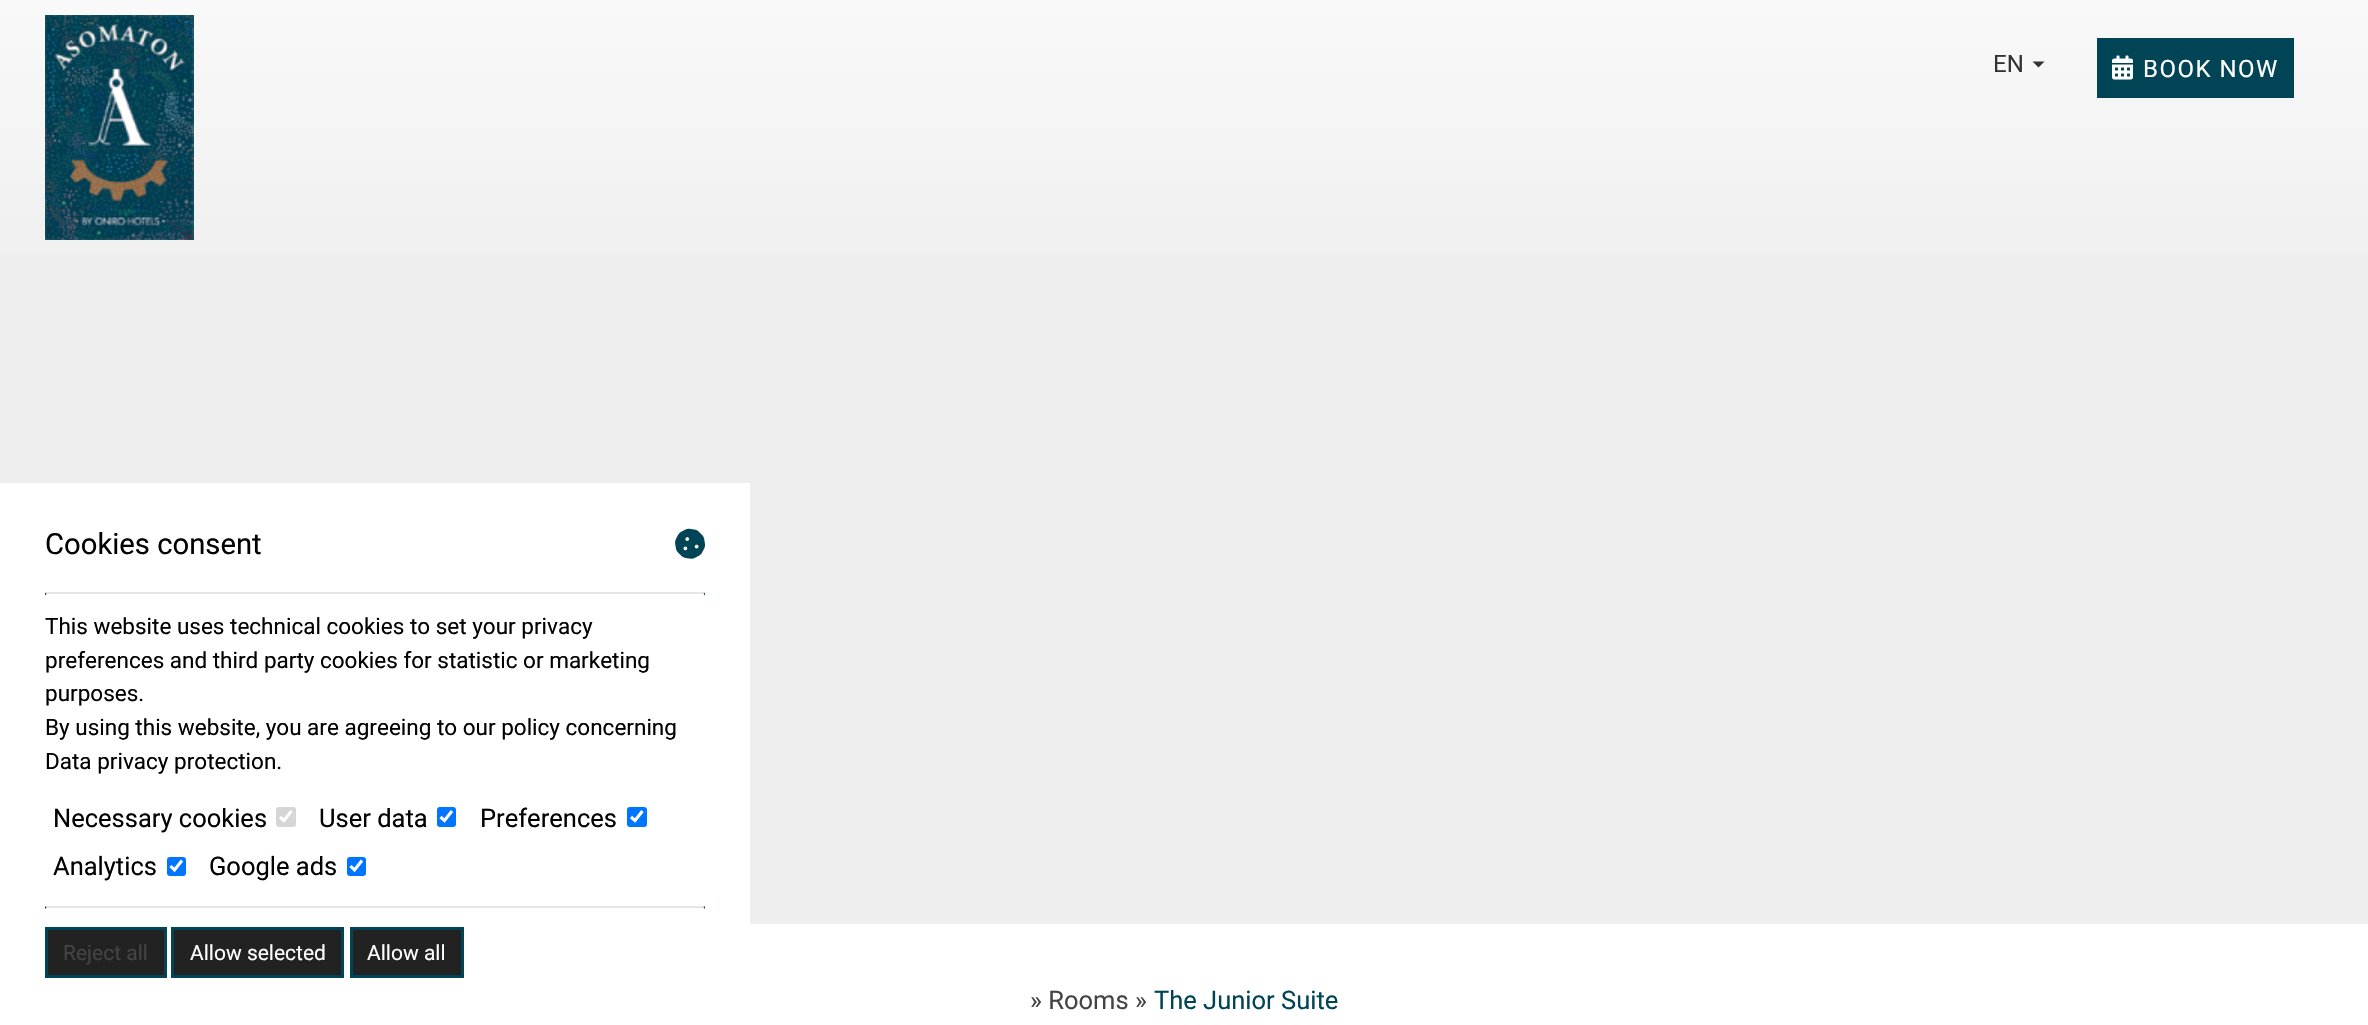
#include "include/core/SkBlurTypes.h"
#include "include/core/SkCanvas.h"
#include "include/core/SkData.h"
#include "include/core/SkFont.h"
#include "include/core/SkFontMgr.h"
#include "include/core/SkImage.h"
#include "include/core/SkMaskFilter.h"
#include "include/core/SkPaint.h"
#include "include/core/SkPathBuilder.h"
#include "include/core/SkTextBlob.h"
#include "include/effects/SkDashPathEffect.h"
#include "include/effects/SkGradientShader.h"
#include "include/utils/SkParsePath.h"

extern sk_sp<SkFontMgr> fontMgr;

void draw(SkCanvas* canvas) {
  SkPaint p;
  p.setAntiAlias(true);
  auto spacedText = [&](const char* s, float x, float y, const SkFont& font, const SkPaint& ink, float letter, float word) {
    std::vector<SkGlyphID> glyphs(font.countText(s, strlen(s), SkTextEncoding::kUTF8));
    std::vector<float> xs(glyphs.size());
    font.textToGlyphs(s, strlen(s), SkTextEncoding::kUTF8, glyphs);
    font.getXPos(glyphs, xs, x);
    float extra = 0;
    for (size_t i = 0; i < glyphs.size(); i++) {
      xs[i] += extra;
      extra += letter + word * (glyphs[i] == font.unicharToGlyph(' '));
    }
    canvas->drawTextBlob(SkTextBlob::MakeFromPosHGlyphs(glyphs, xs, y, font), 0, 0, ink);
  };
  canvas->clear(SK_ColorWHITE);
  {
    const SkColor colors[] = {SkColorSetRGB(249, 249, 249), SkColorSetRGB(240, 240, 240)};
    const float stops[] = {0, 1};
    const SkPoint ends[] = {{1184, 0}, {1184, 255}};
    p.setShader(SkGradientShader::MakeLinear(ends, colors, stops, 2, SkTileMode::kClamp));
    p.setAlpha(255);
  }
  canvas->drawRect(SkRect::MakeLTRB(0, 0, 2368, 255), p);
  canvas->drawImageRect(SkImages::DeferredFromEncodedData(SkData::MakeFromFileName("images/1.png")), SkRect::MakeLTRB(45, 15, 194, 240), SkSamplingOptions());
  p.setShader(nullptr);
  p.setColor(SkColorSetRGB(51, 51, 51));
  canvas->drawPath(SkPathBuilder().moveTo(2032.5f, 61.5f).lineTo(2044.5f, 61.5f).lineTo(2038.5f, 67.5f).close().detach(), p);
  p.setColor(SkColorSetRGB(0, 68, 85));
  canvas->drawRect(SkRect::MakeLTRB(2097, 38, 2294, 98), p);
  canvas->drawImageRect(SkImages::DeferredFromEncodedData(SkData::MakeFromFileName("images/2.png")), SkRect::MakeLTRB(2112, 55, 2133, 80), SkSamplingOptions());
  p.setColor(SkColorSetRGB(238, 238, 238));
  canvas->drawRect(SkRect::MakeLTRB(0, 255, 2368, 924), p);
  p.setColor(SK_ColorWHITE);
  canvas->drawRect(SkRect::MakeLTRB(0, 483, 750, 924), p);
  canvas->drawImageRect(SkImages::DeferredFromEncodedData(SkData::MakeFromFileName("images/3.png")), SkRect::MakeLTRB(675, 528, 705, 559), SkSamplingOptions());
  p.setColor(SkColorSetRGB(230, 230, 230));
  canvas->drawPath(SkPathBuilder().moveTo(45, 592).lineTo(705, 592).lineTo(704, 594).lineTo(46, 594).close().detach(), p);
  p.setColor(SkColorSetRGB(0, 68, 85));
  canvas->drawPath(SkPathBuilder().moveTo(705, 592.5f).lineTo(705, 595.5f).lineTo(703.5f, 594).close().detach(), p);
  p.setColor(SkColorSetARGB(26, 255, 255, 255));
  canvas->drawPath(SkPathBuilder().moveTo(705, 596).lineTo(45, 596).lineTo(46, 594).lineTo(704, 594).close().detach(), p);
  p.setColor(SkColorSetRGB(0, 45, 57));
  canvas->drawPath(SkPathBuilder().moveTo(45, 595.5f).lineTo(45, 592.5f).lineTo(46.5f, 594).close().detach(), p);
  p.setColor(SkColorSetRGB(214, 214, 214));
  canvas->drawRoundRect(SkRect::MakeLTRB(276, 807, 296, 827), 3, 3, p);
  p.setStyle(SkPaint::kStroke_Style);
  p.setStrokeWidth(3.1f);
  p.setColor(SK_ColorWHITE);
  canvas->drawPath(SkPathBuilder().moveTo(280, 817).lineTo(284, 820.5f).lineTo(291.5f, 811).detach(), p);
  p.setStyle(SkPaint::kFill_Style);
  p.setColor(SkColorSetRGB(0, 117, 255));
  canvas->drawRoundRect(SkRect::MakeLTRB(437, 807, 456, 827), 3, 3, p);
  p.setStyle(SkPaint::kStroke_Style);
  p.setColor(SK_ColorWHITE);
  canvas->drawPath(SkPathBuilder().moveTo(440.5f, 817).lineTo(444.5f, 820.5f).lineTo(452, 811).detach(), p);
  p.setStyle(SkPaint::kFill_Style);
  p.setColor(SkColorSetRGB(0, 117, 255));
  canvas->drawRoundRect(SkRect::MakeLTRB(627, 807, 647, 827), 3, 3, p);
  p.setStyle(SkPaint::kStroke_Style);
  p.setColor(SK_ColorWHITE);
  canvas->drawPath(SkPathBuilder().moveTo(631, 817).lineTo(635, 820.5f).lineTo(642.5f, 811).detach(), p);
  p.setStyle(SkPaint::kFill_Style);
  p.setColor(SkColorSetRGB(0, 117, 255));
  canvas->drawRoundRect(SkRect::MakeLTRB(167, 857, 186, 876), 3, 3, p);
  p.setStyle(SkPaint::kStroke_Style);
  p.setColor(SK_ColorWHITE);
  canvas->drawPath(SkPathBuilder().moveTo(170.5f, 866).lineTo(174.5f, 870).lineTo(182, 860.5f).detach(), p);
  p.setStyle(SkPaint::kFill_Style);
  p.setColor(SkColorSetRGB(0, 117, 255));
  canvas->drawRoundRect(SkRect::MakeLTRB(347, 857, 366, 876), 3, 3, p);
  p.setStyle(SkPaint::kStroke_Style);
  p.setColor(SK_ColorWHITE);
  canvas->drawPath(SkPathBuilder().moveTo(350.5f, 866).lineTo(354.5f, 870).lineTo(362, 860.5f).detach(), p);
  p.setStyle(SkPaint::kFill_Style);
  p.setColor(SkColorSetRGB(230, 230, 230));
  canvas->drawPath(SkPathBuilder().moveTo(45, 906).lineTo(705, 906).lineTo(704, 908).lineTo(46, 908).close().detach(), p);
  p.setColor(SkColorSetRGB(0, 68, 85));
  canvas->drawPath(SkPathBuilder().moveTo(705, 906).lineTo(705, 909).lineTo(703.5f, 907.5f).close().detach(), p);
  p.setColor(SkColorSetARGB(26, 255, 255, 255));
  canvas->drawPath(SkPathBuilder().moveTo(705, 909).lineTo(45, 909).lineTo(46, 908).lineTo(704, 908).close().detach(), p);
  p.setColor(SkColorSetRGB(0, 45, 57));
  canvas->drawPath(SkPathBuilder().moveTo(45, 909).lineTo(45, 906).lineTo(46.5f, 907.5f).close().detach(), p);
  p.setColor(SkColorSetRGB(34, 34, 34));
  canvas->drawRect(SkRect::MakeLTRB(46.5f, 928.5f, 165.5f, 976.5f), p);
  p.setStyle(SkPaint::kStroke_Style);
  p.setStrokeWidth(3);
  p.setColor(SkColorSetRGB(0, 68, 85));
  canvas->drawRect(SkRect::MakeLTRB(46.5f, 928.5f, 165.5f, 976.5f), p);
  p.setStyle(SkPaint::kFill_Style);
  p.setColor(SkColorSetRGB(34, 34, 34));
  canvas->drawRect(SkRect::MakeLTRB(172.5f, 928.5f, 342.5f, 976.5f), p);
  p.setStyle(SkPaint::kStroke_Style);
  p.setColor(SkColorSetRGB(0, 68, 85));
  canvas->drawRect(SkRect::MakeLTRB(172.5f, 928.5f, 342.5f, 976.5f), p);
  p.setStyle(SkPaint::kFill_Style);
  p.setColor(SkColorSetRGB(34, 34, 34));
  canvas->drawRect(SkRect::MakeLTRB(351.5f, 928.5f, 462.5f, 976.5f), p);
  p.setStyle(SkPaint::kStroke_Style);
  p.setColor(SkColorSetRGB(0, 68, 85));
  canvas->drawRect(SkRect::MakeLTRB(351.5f, 928.5f, 462.5f, 976.5f), p);
  SkFont font1(fontMgr->matchFamilyStyle("Roboto", SkFontStyle::Normal()), 24);
  font1.setSubpixel(true);
  p.setStyle(SkPaint::kFill_Style);
  p.setColor(SkColorSetRGB(51, 51, 51));
  canvas->drawString("EN", 1993, 72, font1, p);
  p.setColor(SK_ColorWHITE);
  spacedText("BOOK NOW", 2143, 77, font1, p, 1.5f, 0);
  SkFont font2(fontMgr->matchFamilyStyle("Roboto", SkFontStyle::Normal()), 29.25f);
  font2.setSubpixel(true);
  p.setColor(SK_ColorBLACK);
  canvas->drawString("Cookies consent", 45, 554, font2, p);
  SkFont font3(fontMgr->matchFamilyStyle("Roboto", SkFontStyle::Normal()), 22.5f);
  font3.setSubpixel(true);
  canvas->drawString("This website uses technical cookies to set your privacy", 45, 634, font3, p);
  canvas->drawString("preferences and third party cookies for statistic or marketing", 45, 668, font3, p);
  canvas->drawString("purposes.", 45, 701, font3, p);
  canvas->drawString("By using this website, you are agreeing to our policy concerning", 45, 735, font3, p);
  canvas->drawString("Data privacy protection.", 45, 769, font3, p);
  SkFont font4(fontMgr->matchFamilyStyle("Roboto", SkFontStyle::Normal()), 25.5f);
  font4.setSubpixel(true);
  canvas->drawString("Necessary cookies", 53, 827, font4, p);
  canvas->drawString("User data", 319, 827, font4, p);
  canvas->drawString("Preferences", 480, 827, font4, p);
  canvas->drawString("Analytics", 53, 875, font4, p);
  canvas->drawString("Google ads", 209, 875, font4, p);
  SkFont font5(fontMgr->matchFamilyStyle("Roboto", SkFontStyle::Normal()), 21);
  font5.setSubpixel(true);
  p.setColor(SkColorSetRGB(68, 68, 68));
  canvas->drawString("Reject all", 63, 960, font5, p);
  p.setColor(SK_ColorWHITE);
  canvas->drawString("Allow selected", 190, 960, font5, p);
  canvas->drawString("Allow all", 367, 960, font5, p);
  p.setColor(SkColorSetRGB(68, 68, 68));
  canvas->drawString("» Rooms »", 1030, 1009, font4, p);
  p.setColor(SkColorSetRGB(0, 68, 85));
  canvas->drawString("The Junior Suite", 1154, 1009, font4, p);
}
